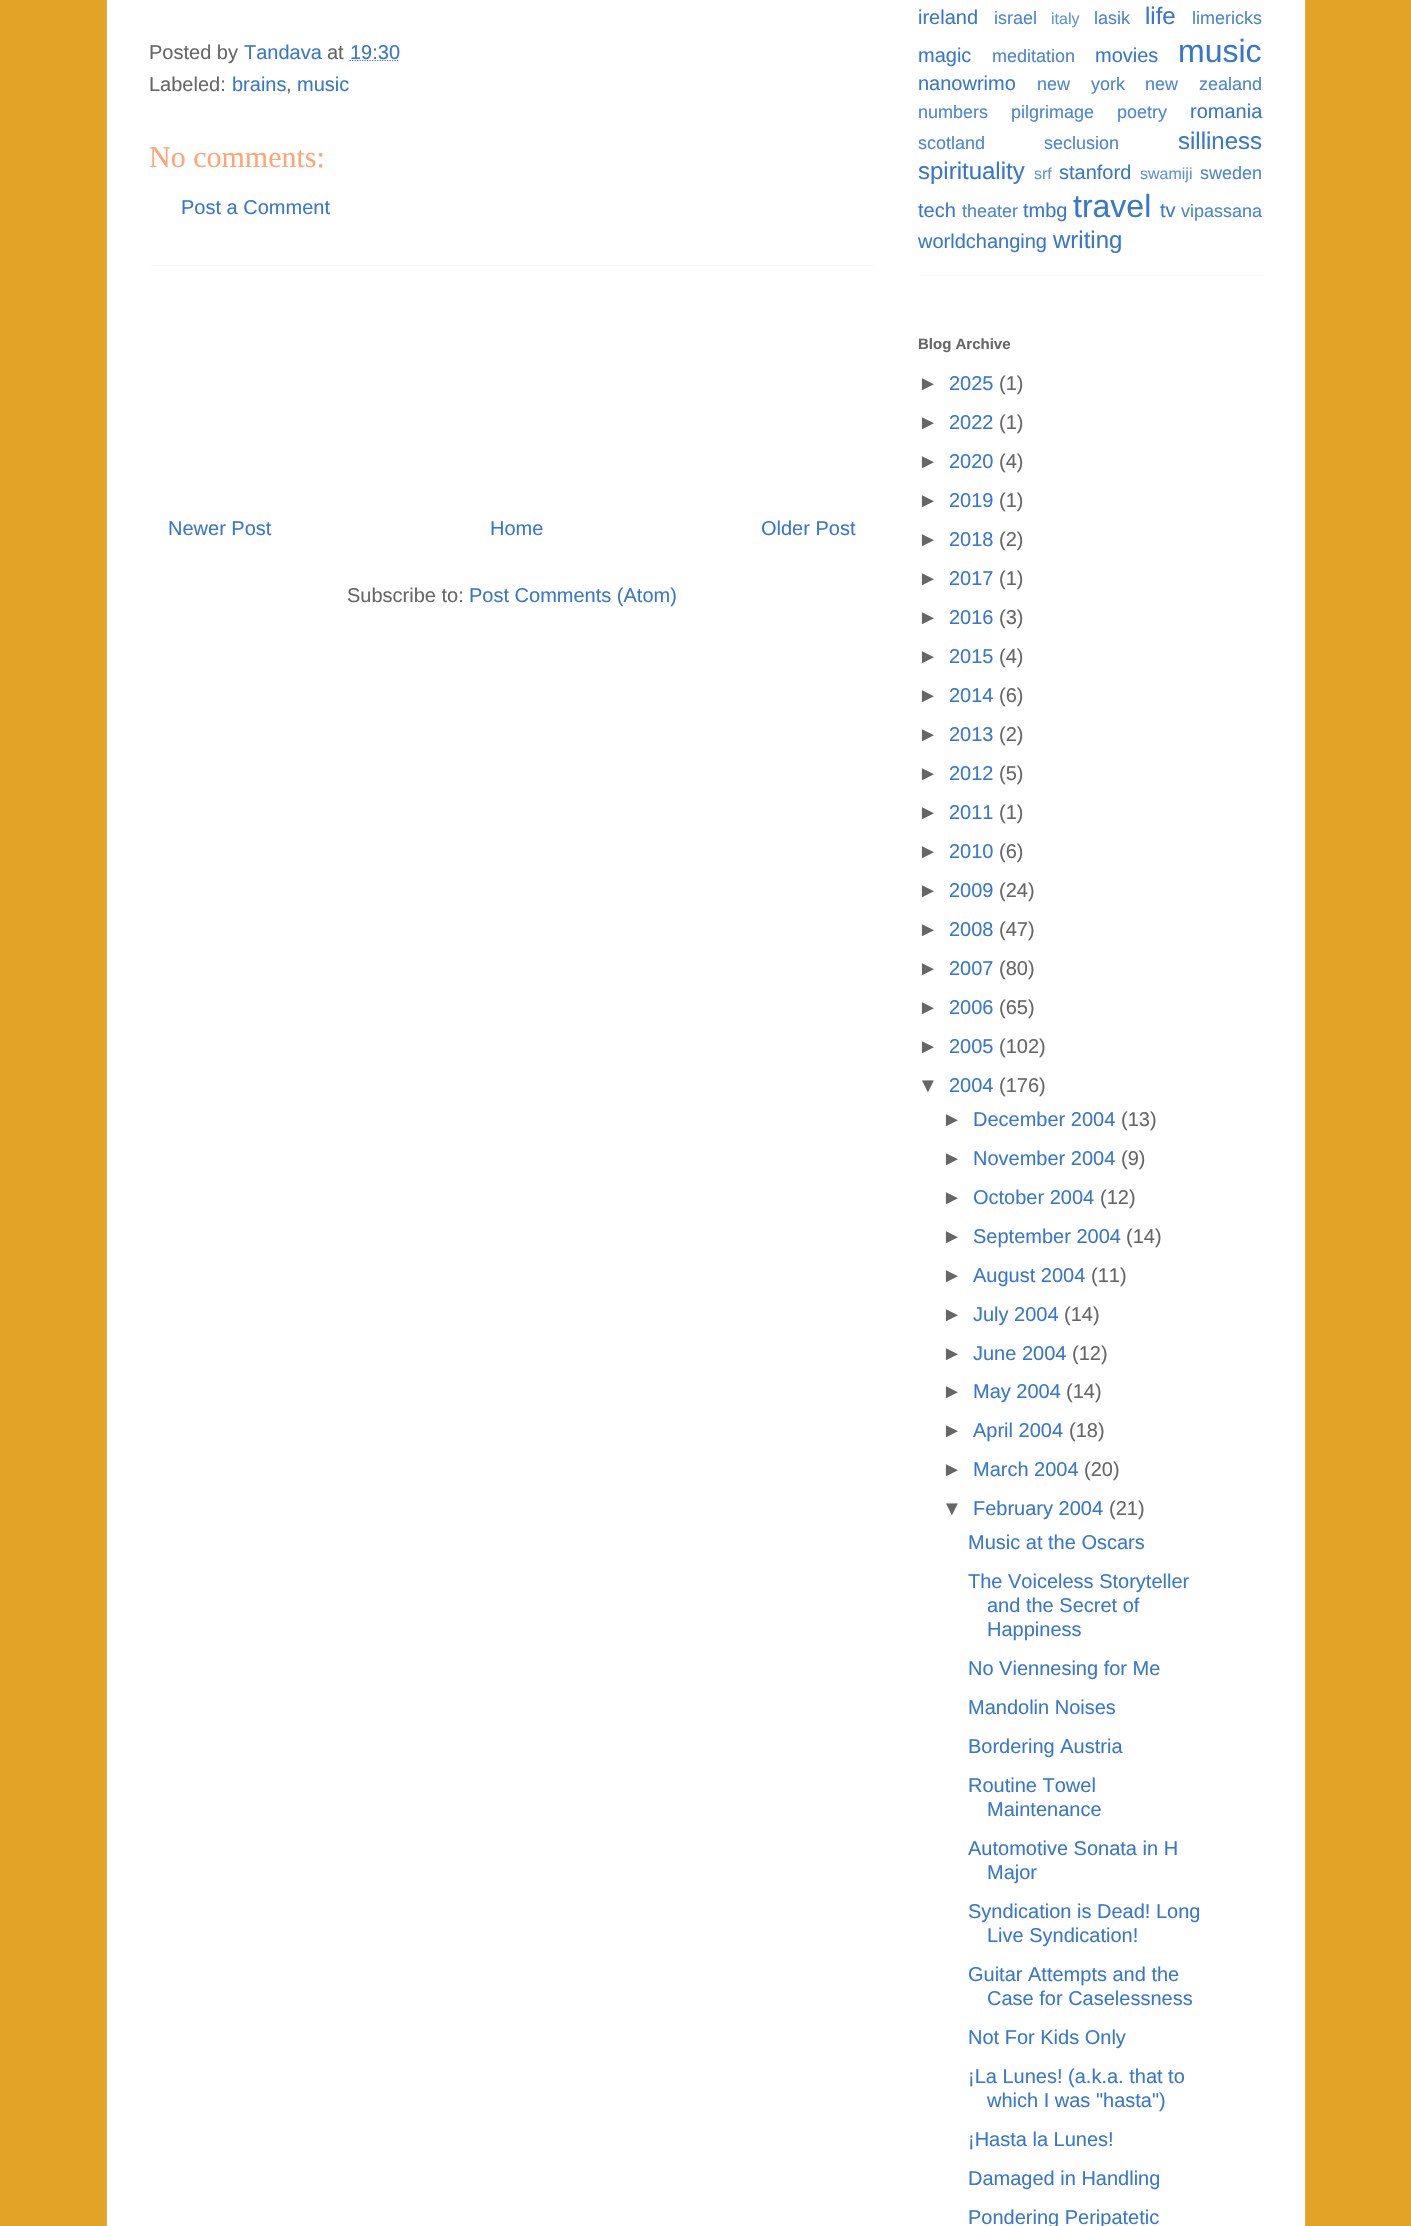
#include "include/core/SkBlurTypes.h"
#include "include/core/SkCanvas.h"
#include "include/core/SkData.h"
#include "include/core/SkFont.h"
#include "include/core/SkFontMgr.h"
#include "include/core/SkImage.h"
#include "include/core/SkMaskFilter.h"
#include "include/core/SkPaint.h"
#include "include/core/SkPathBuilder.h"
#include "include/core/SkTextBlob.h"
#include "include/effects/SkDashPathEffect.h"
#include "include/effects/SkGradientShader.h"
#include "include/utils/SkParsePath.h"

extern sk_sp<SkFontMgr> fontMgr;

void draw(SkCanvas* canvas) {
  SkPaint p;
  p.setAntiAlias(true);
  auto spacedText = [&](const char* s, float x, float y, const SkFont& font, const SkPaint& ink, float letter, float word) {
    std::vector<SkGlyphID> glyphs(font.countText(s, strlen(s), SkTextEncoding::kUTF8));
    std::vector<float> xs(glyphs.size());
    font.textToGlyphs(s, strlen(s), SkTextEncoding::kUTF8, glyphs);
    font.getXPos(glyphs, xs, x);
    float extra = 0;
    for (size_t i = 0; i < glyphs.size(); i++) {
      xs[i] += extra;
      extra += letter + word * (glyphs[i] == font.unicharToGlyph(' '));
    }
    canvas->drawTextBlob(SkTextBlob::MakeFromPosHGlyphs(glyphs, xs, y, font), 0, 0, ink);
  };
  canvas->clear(SkColorSetRGB(227, 163, 39));
  p.setColor(SK_ColorWHITE);
  canvas->drawRect(SkRect::MakeLTRB(107, 0, 1305, 2226), p);
  p.setColor(SkColorSetRGB(216, 175, 76));
  canvas->drawRect(SkRect::MakeLTRB(1305, 0, 1306, 2226), p);
  canvas->drawRect(SkRect::MakeLTRB(106, 0, 107, 2226), p);
  p.setColor(SkColorSetRGB(249, 249, 249));
  canvas->drawRect(SkRect::MakeLTRB(150, 265, 875, 266), p);
  p.setStyle(SkPaint::kStroke_Style);
  p.setStrokeWidth(1.2f);
  p.setColor(SkColorSetRGB(55, 120, 205));
  p.setPathEffect(SkDashPathEffect::Make({{1.25f, 1.25f}}, 0));
  canvas->drawPath(SkPathBuilder().moveTo(349.5f, 60.5f).lineTo(399.5f, 60.5f).detach(), p);
  p.setPathEffect(nullptr);
  p.setStyle(SkPaint::kFill_Style);
  p.setColor(SkColorSetRGB(249, 249, 249));
  canvas->drawRect(SkRect::MakeLTRB(919, 275, 1263, 276), p);
  SkFont font1(fontMgr->matchFamilyStyle("Liberation Sans", SkFontStyle::Normal()), 20);
  font1.setSubpixel(true);
  p.setColor(SkColorSetRGB(102, 102, 102));
  canvas->drawString("Posted by", 149, 59, font1, p);
  p.setColor(SkColorSetRGB(55, 120, 205));
  canvas->drawString("Tandava", 244, 59, font1, p);
  p.setColor(SkColorSetRGB(102, 102, 102));
  canvas->drawString("at", 327, 59, font1, p);
  p.setColor(SkColorSetRGB(55, 120, 205));
  canvas->drawString("19:30", 350, 59, font1, p);
  p.setColor(SkColorSetRGB(102, 102, 102));
  canvas->drawString("Labeled:", 149, 91, font1, p);
  p.setColor(SkColorSetRGB(55, 120, 205));
  canvas->drawString("brains", 232, 91, font1, p);
  p.setColor(SkColorSetRGB(102, 102, 102));
  canvas->drawString(",", 286, 91, font1, p);
  p.setColor(SkColorSetRGB(55, 120, 205));
  canvas->drawString("music", 297, 91, font1, p);
  SkFont font2(fontMgr->matchFamilyStyle("Liberation Serif", SkFontStyle::Normal()), 30);
  font2.setSubpixel(true);
  p.setColor(SkColorSetRGB(255, 165, 117));
  canvas->drawString("No comments:", 149, 167, font2, p);
  p.setColor(SkColorSetRGB(55, 120, 205));
  canvas->drawString("Post a Comment", 181, 214, font1, p);
  canvas->drawString("Newer Post", 168, 535, font1, p);
  canvas->drawString("Home", 490, 535, font1, p);
  canvas->drawString("Older Post", 761, 535, font1, p);
  p.setColor(SkColorSetRGB(102, 102, 102));
  canvas->drawString("Subscribe to:", 347, 602, font1, p);
  p.setColor(SkColorSetRGB(55, 120, 205));
  canvas->drawString("Post Comments (Atom)", 469, 602, font1, p);
  canvas->drawString("ireland", 918, 24, font1, p);
  SkFont font3(fontMgr->matchFamilyStyle("Liberation Sans", SkFontStyle::Normal()), 18);
  font3.setSubpixel(true);
  p.setColor(SkColorSetRGB(75, 134, 210));
  canvas->drawString("israel", 994, 24, font3, p);
  SkFont font4(fontMgr->matchFamilyStyle("Liberation Sans", SkFontStyle::Normal()), 16);
  font4.setSubpixel(true);
  p.setColor(SkColorSetRGB(95, 147, 215));
  canvas->drawString("italy", 1051, 24, font4, p);
  p.setColor(SkColorSetRGB(75, 134, 210));
  canvas->drawString("lasik", 1094, 24, font3, p);
  SkFont font5(fontMgr->matchFamilyStyle("Liberation Sans", SkFontStyle::Normal()), 24);
  font5.setSubpixel(true);
  p.setColor(SkColorSetRGB(55, 120, 205));
  canvas->drawString("life", 1145, 24, font5, p);
  p.setColor(SkColorSetRGB(75, 134, 210));
  canvas->drawString("limericks", 1192, 24, font3, p);
  p.setColor(SkColorSetRGB(55, 120, 205));
  canvas->drawString("magic", 918, 62, font1, p);
  p.setColor(SkColorSetRGB(75, 134, 210));
  canvas->drawString("meditation", 992, 62, font3, p);
  p.setColor(SkColorSetRGB(55, 120, 205));
  canvas->drawString("movies", 1095, 62, font1, p);
  SkFont font6(fontMgr->matchFamilyStyle("Liberation Sans", SkFontStyle::Normal()), 32);
  font6.setSubpixel(true);
  canvas->drawString("music", 1178, 62, font6, p);
  canvas->drawString("nanowrimo", 918, 90, font1, p);
  p.setColor(SkColorSetRGB(75, 134, 210));
  spacedText("new york", 1037, 90, font3, p, 0, 16);
  spacedText("new zealand", 1145, 90, font3, p, 0, 16);
  canvas->drawString("numbers", 918, 118, font3, p);
  canvas->drawString("pilgrimage", 1011, 118, font3, p);
  canvas->drawString("poetry", 1117, 118, font3, p);
  p.setColor(SkColorSetRGB(55, 120, 205));
  canvas->drawString("romania", 1190, 118, font1, p);
  p.setColor(SkColorSetRGB(75, 134, 210));
  canvas->drawString("scotland", 918, 149, font3, p);
  canvas->drawString("seclusion", 1044, 149, font3, p);
  p.setColor(SkColorSetRGB(55, 120, 205));
  canvas->drawString("silliness", 1178, 149, font5, p);
  canvas->drawString("spirituality", 918, 179, font5, p);
  p.setColor(SkColorSetRGB(95, 147, 215));
  canvas->drawString("srf", 1034, 179, font4, p);
  p.setColor(SkColorSetRGB(55, 120, 205));
  canvas->drawString("stanford", 1059, 179, font1, p);
  p.setColor(SkColorSetRGB(95, 147, 215));
  canvas->drawString("swamiji", 1140, 179, font4, p);
  p.setColor(SkColorSetRGB(75, 134, 210));
  canvas->drawString("sweden", 1200, 179, font3, p);
  p.setColor(SkColorSetRGB(55, 120, 205));
  canvas->drawString("tech", 918, 217, font1, p);
  p.setColor(SkColorSetRGB(75, 134, 210));
  canvas->drawString("theater", 962, 217, font3, p);
  p.setColor(SkColorSetRGB(55, 120, 205));
  canvas->drawString("tmbg", 1023, 217, font1, p);
  canvas->drawString("travel", 1073, 217, font6, p);
  canvas->drawString("tv", 1160, 217, font1, p);
  p.setColor(SkColorSetRGB(75, 134, 210));
  canvas->drawString("vipassana", 1181, 217, font3, p);
  p.setColor(SkColorSetRGB(55, 120, 205));
  canvas->drawString("worldchanging", 918, 248, font1, p);
  canvas->drawString("writing", 1053, 248, font5, p);
  SkFont font7(fontMgr->matchFamilyStyle("Liberation Sans", SkFontStyle::Bold()), 15);
  font7.setSubpixel(true);
  p.setColor(SkColorSetRGB(102, 102, 102));
  canvas->drawString("Blog Archive", 918, 349, font7, p);
  canvas->drawString("►", 918, 390, font1, p);
  p.setColor(SkColorSetRGB(55, 120, 205));
  canvas->drawString("2025", 949, 390, font1, p);
  p.setColor(SkColorSetRGB(102, 102, 102));
  canvas->drawString("(1)", 999, 390, font1, p);
  canvas->drawString("►", 918, 429, font1, p);
  p.setColor(SkColorSetRGB(55, 120, 205));
  canvas->drawString("2022", 949, 429, font1, p);
  p.setColor(SkColorSetRGB(102, 102, 102));
  canvas->drawString("(1)", 999, 429, font1, p);
  canvas->drawString("►", 918, 468, font1, p);
  p.setColor(SkColorSetRGB(55, 120, 205));
  canvas->drawString("2020", 949, 468, font1, p);
  p.setColor(SkColorSetRGB(102, 102, 102));
  canvas->drawString("(4)", 999, 468, font1, p);
  canvas->drawString("►", 918, 507, font1, p);
  p.setColor(SkColorSetRGB(55, 120, 205));
  canvas->drawString("2019", 949, 507, font1, p);
  p.setColor(SkColorSetRGB(102, 102, 102));
  canvas->drawString("(1)", 999, 507, font1, p);
  canvas->drawString("►", 918, 546, font1, p);
  p.setColor(SkColorSetRGB(55, 120, 205));
  canvas->drawString("2018", 949, 546, font1, p);
  p.setColor(SkColorSetRGB(102, 102, 102));
  canvas->drawString("(2)", 999, 546, font1, p);
  canvas->drawString("►", 918, 585, font1, p);
  p.setColor(SkColorSetRGB(55, 120, 205));
  canvas->drawString("2017", 949, 585, font1, p);
  p.setColor(SkColorSetRGB(102, 102, 102));
  canvas->drawString("(1)", 999, 585, font1, p);
  canvas->drawString("►", 918, 624, font1, p);
  p.setColor(SkColorSetRGB(55, 120, 205));
  canvas->drawString("2016", 949, 624, font1, p);
  p.setColor(SkColorSetRGB(102, 102, 102));
  canvas->drawString("(3)", 999, 624, font1, p);
  canvas->drawString("►", 918, 663, font1, p);
  p.setColor(SkColorSetRGB(55, 120, 205));
  canvas->drawString("2015", 949, 663, font1, p);
  p.setColor(SkColorSetRGB(102, 102, 102));
  canvas->drawString("(4)", 999, 663, font1, p);
  canvas->drawString("►", 918, 702, font1, p);
  p.setColor(SkColorSetRGB(55, 120, 205));
  canvas->drawString("2014", 949, 702, font1, p);
  p.setColor(SkColorSetRGB(102, 102, 102));
  canvas->drawString("(6)", 999, 702, font1, p);
  canvas->drawString("►", 918, 741, font1, p);
  p.setColor(SkColorSetRGB(55, 120, 205));
  canvas->drawString("2013", 949, 741, font1, p);
  p.setColor(SkColorSetRGB(102, 102, 102));
  canvas->drawString("(2)", 999, 741, font1, p);
  canvas->drawString("►", 918, 780, font1, p);
  p.setColor(SkColorSetRGB(55, 120, 205));
  canvas->drawString("2012", 949, 780, font1, p);
  p.setColor(SkColorSetRGB(102, 102, 102));
  canvas->drawString("(5)", 999, 780, font1, p);
  canvas->drawString("►", 918, 819, font1, p);
  p.setColor(SkColorSetRGB(55, 120, 205));
  canvas->drawString("2011", 949, 819, font1, p);
  p.setColor(SkColorSetRGB(102, 102, 102));
  canvas->drawString("(1)", 999, 819, font1, p);
  canvas->drawString("►", 918, 858, font1, p);
  p.setColor(SkColorSetRGB(55, 120, 205));
  canvas->drawString("2010", 949, 858, font1, p);
  p.setColor(SkColorSetRGB(102, 102, 102));
  canvas->drawString("(6)", 999, 858, font1, p);
  canvas->drawString("►", 918, 897, font1, p);
  p.setColor(SkColorSetRGB(55, 120, 205));
  canvas->drawString("2009", 949, 897, font1, p);
  p.setColor(SkColorSetRGB(102, 102, 102));
  canvas->drawString("(24)", 999, 897, font1, p);
  canvas->drawString("►", 918, 936, font1, p);
  p.setColor(SkColorSetRGB(55, 120, 205));
  canvas->drawString("2008", 949, 936, font1, p);
  p.setColor(SkColorSetRGB(102, 102, 102));
  canvas->drawString("(47)", 999, 936, font1, p);
  canvas->drawString("►", 918, 975, font1, p);
  p.setColor(SkColorSetRGB(55, 120, 205));
  canvas->drawString("2007", 949, 975, font1, p);
  p.setColor(SkColorSetRGB(102, 102, 102));
  canvas->drawString("(80)", 999, 975, font1, p);
  canvas->drawString("►", 918, 1014, font1, p);
  p.setColor(SkColorSetRGB(55, 120, 205));
  canvas->drawString("2006", 949, 1014, font1, p);
  p.setColor(SkColorSetRGB(102, 102, 102));
  canvas->drawString("(65)", 999, 1014, font1, p);
  canvas->drawString("►", 918, 1053, font1, p);
  p.setColor(SkColorSetRGB(55, 120, 205));
  canvas->drawString("2005", 949, 1053, font1, p);
  p.setColor(SkColorSetRGB(102, 102, 102));
  canvas->drawString("(102)", 999, 1053, font1, p);
  canvas->drawString("▼", 918, 1092, font1, p);
  p.setColor(SkColorSetRGB(55, 120, 205));
  canvas->drawString("2004", 949, 1092, font1, p);
  p.setColor(SkColorSetRGB(102, 102, 102));
  canvas->drawString("(176)", 999, 1092, font1, p);
  canvas->drawString("►", 942, 1126, font1, p);
  p.setColor(SkColorSetRGB(55, 120, 205));
  canvas->drawString("December 2004", 973, 1126, font1, p);
  p.setColor(SkColorSetRGB(102, 102, 102));
  canvas->drawString("(13)", 1121, 1126, font1, p);
  canvas->drawString("►", 942, 1165, font1, p);
  p.setColor(SkColorSetRGB(55, 120, 205));
  canvas->drawString("November 2004", 973, 1165, font1, p);
  p.setColor(SkColorSetRGB(102, 102, 102));
  canvas->drawString("(9)", 1121, 1165, font1, p);
  canvas->drawString("►", 942, 1204, font1, p);
  p.setColor(SkColorSetRGB(55, 120, 205));
  canvas->drawString("October 2004", 973, 1204, font1, p);
  p.setColor(SkColorSetRGB(102, 102, 102));
  canvas->drawString("(12)", 1100, 1204, font1, p);
  canvas->drawString("►", 942, 1243, font1, p);
  p.setColor(SkColorSetRGB(55, 120, 205));
  canvas->drawString("September 2004", 973, 1243, font1, p);
  p.setColor(SkColorSetRGB(102, 102, 102));
  canvas->drawString("(14)", 1126, 1243, font1, p);
  canvas->drawString("►", 942, 1282, font1, p);
  p.setColor(SkColorSetRGB(55, 120, 205));
  canvas->drawString("August 2004", 973, 1282, font1, p);
  p.setColor(SkColorSetRGB(102, 102, 102));
  canvas->drawString("(11)", 1091, 1282, font1, p);
  canvas->drawString("►", 942, 1321, font1, p);
  p.setColor(SkColorSetRGB(55, 120, 205));
  canvas->drawString("July 2004", 973, 1321, font1, p);
  p.setColor(SkColorSetRGB(102, 102, 102));
  canvas->drawString("(14)", 1064, 1321, font1, p);
  canvas->drawString("►", 942, 1360, font1, p);
  p.setColor(SkColorSetRGB(55, 120, 205));
  canvas->drawString("June 2004", 973, 1360, font1, p);
  p.setColor(SkColorSetRGB(102, 102, 102));
  canvas->drawString("(12)", 1072, 1360, font1, p);
  canvas->drawString("►", 942, 1398, font1, p);
  p.setColor(SkColorSetRGB(55, 120, 205));
  canvas->drawString("May 2004", 973, 1398, font1, p);
  p.setColor(SkColorSetRGB(102, 102, 102));
  canvas->drawString("(14)", 1066, 1398, font1, p);
  canvas->drawString("►", 942, 1437, font1, p);
  p.setColor(SkColorSetRGB(55, 120, 205));
  canvas->drawString("April 2004", 973, 1437, font1, p);
  p.setColor(SkColorSetRGB(102, 102, 102));
  canvas->drawString("(18)", 1069, 1437, font1, p);
  canvas->drawString("►", 942, 1476, font1, p);
  p.setColor(SkColorSetRGB(55, 120, 205));
  canvas->drawString("March 2004", 973, 1476, font1, p);
  p.setColor(SkColorSetRGB(102, 102, 102));
  canvas->drawString("(20)", 1084, 1476, font1, p);
  canvas->drawString("▼", 942, 1515, font1, p);
  p.setColor(SkColorSetRGB(55, 120, 205));
  canvas->drawString("February 2004", 973, 1515, font1, p);
  p.setColor(SkColorSetRGB(102, 102, 102));
  canvas->drawString("(21)", 1109, 1515, font1, p);
  p.setColor(SkColorSetRGB(55, 120, 205));
  canvas->drawString("Music at the Oscars", 968, 1549, font1, p);
  canvas->drawString("The Voiceless Storyteller", 968, 1588, font1, p);
  canvas->drawString("and the Secret of", 987, 1612, font1, p);
  canvas->drawString("Happiness", 987, 1636, font1, p);
  canvas->drawString("No Viennesing for Me", 968, 1675, font1, p);
  canvas->drawString("Mandolin Noises", 968, 1714, font1, p);
  canvas->drawString("Bordering Austria", 968, 1753, font1, p);
  canvas->drawString("Routine Towel", 968, 1792, font1, p);
  canvas->drawString("Maintenance", 987, 1816, font1, p);
  canvas->drawString("Automotive Sonata in H", 968, 1855, font1, p);
  canvas->drawString("Major", 987, 1879, font1, p);
  canvas->drawString("Syndication is Dead! Long", 968, 1918, font1, p);
  canvas->drawString("Live Syndication!", 987, 1942, font1, p);
  canvas->drawString("Guitar Attempts and the", 968, 1981, font1, p);
  canvas->drawString("Case for Caselessness", 987, 2005, font1, p);
  canvas->drawString("Not For Kids Only", 968, 2044, font1, p);
  canvas->drawString("¡La Lunes! (a.k.a. that to", 968, 2083, font1, p);
  canvas->drawString("which I was \"hasta\")", 987, 2107, font1, p);
  canvas->drawString("¡Hasta la Lunes!", 968, 2146, font1, p);
  canvas->drawString("Damaged in Handling", 968, 2185, font1, p);
  canvas->drawString("Pondering Peripatetic", 968, 2224, font1, p);
}
